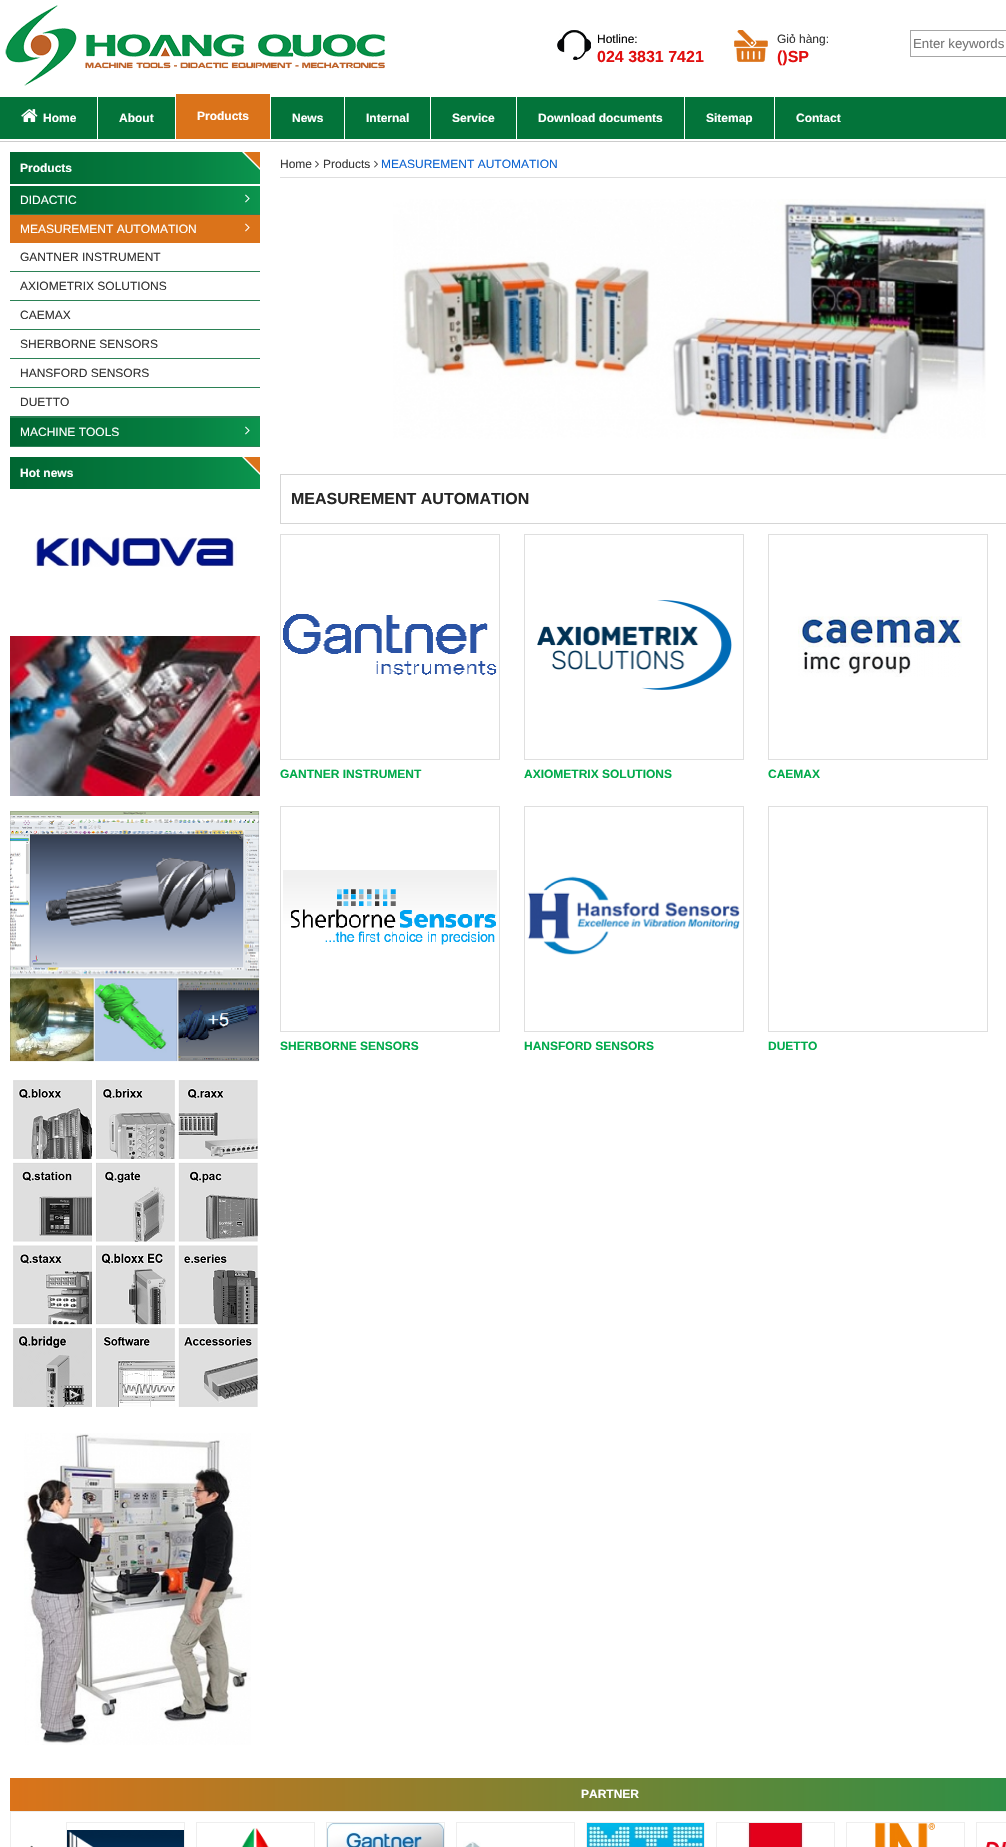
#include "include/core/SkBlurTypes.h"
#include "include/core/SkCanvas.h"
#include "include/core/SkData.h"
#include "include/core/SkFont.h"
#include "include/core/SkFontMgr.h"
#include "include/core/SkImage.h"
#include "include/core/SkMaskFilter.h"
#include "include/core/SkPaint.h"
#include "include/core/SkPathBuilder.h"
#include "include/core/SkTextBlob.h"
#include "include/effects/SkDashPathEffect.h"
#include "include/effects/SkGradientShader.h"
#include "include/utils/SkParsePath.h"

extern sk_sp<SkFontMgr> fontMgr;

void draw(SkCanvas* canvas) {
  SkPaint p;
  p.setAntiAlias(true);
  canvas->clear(SK_ColorWHITE);
  canvas->drawImageRect(SkImages::DeferredFromEncodedData(SkData::MakeFromFileName("images/1.png")), SkRect::MakeLTRB(5, 5, 385, 86), SkSamplingOptions());
  canvas->drawImageRect(SkImages::DeferredFromEncodedData(SkData::MakeFromFileName("images/2.png")), SkRect::MakeLTRB(557, 30, 591, 60), SkSamplingOptions());
  canvas->drawImageRect(SkImages::DeferredFromEncodedData(SkData::MakeFromFileName("images/3.png")), SkRect::MakeLTRB(734, 30, 768, 62), SkSamplingOptions());
  p.setStyle(SkPaint::kStroke_Style);
  p.setStrokeWidth(1);
  p.setColor(SkColorSetRGB(166, 166, 166));
  canvas->drawRect(SkRect::MakeLTRB(910.5f, 30.5f, 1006.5f, 56.5f), p);
  p.setStyle(SkPaint::kFill_Style);
  p.setColor(SkColorSetRGB(3, 116, 58));
  canvas->drawRect(SkRect::MakeLTRB(0, 97, 1006, 139), p);
  p.setColor(SkColorSetRGB(204, 204, 204));
  canvas->drawRect(SkRect::MakeLTRB(0, 141, 1006, 142), p);
  canvas->drawImageRect(SkImages::DeferredFromEncodedData(SkData::MakeFromFileName("images/4.png")), SkRect::MakeLTRB(21, 109, 38, 122), SkSamplingOptions());
  p.setColor(SK_ColorWHITE);
  canvas->drawRect(SkRect::MakeLTRB(97, 97, 98, 139), p);
  p.setColor(SkColorSetRGB(219, 115, 26));
  canvas->drawRect(SkRect::MakeLTRB(176, 94, 270, 139), p);
  p.setColor(SK_ColorWHITE);
  canvas->drawRect(SkRect::MakeLTRB(175, 94, 176, 139), p);
  canvas->drawRect(SkRect::MakeLTRB(270, 97, 271, 139), p);
  canvas->drawRect(SkRect::MakeLTRB(344, 97, 345, 139), p);
  canvas->drawRect(SkRect::MakeLTRB(430, 97, 431, 139), p);
  canvas->drawRect(SkRect::MakeLTRB(516, 97, 517, 139), p);
  canvas->drawRect(SkRect::MakeLTRB(684, 97, 685, 139), p);
  canvas->drawRect(SkRect::MakeLTRB(774, 97, 775, 139), p);
  {
    const SkColor colors[] = {SkColorSetRGB(0, 102, 50), SkColorSetRGB(6, 129, 66), SkColorSetRGB(11, 149, 78)};
    const float stops[] = {0, 0.72f, 1};
    const SkPoint ends[] = {{10, 168}, {260, 168}};
    p.setShader(SkGradientShader::MakeLinear(ends, colors, stops, 3, SkTileMode::kClamp));
    p.setAlpha(255);
  }
  canvas->drawRect(SkRect::MakeLTRB(10, 152, 260, 184), p);
  p.setShader(nullptr);
  p.setColor(SK_ColorWHITE);
  canvas->drawPath(SkPathBuilder().moveTo(242, 152).lineTo(260, 152).lineTo(260, 170).close().detach(), p);
  p.setColor(SkColorSetRGB(219, 115, 26));
  canvas->drawPath(SkPathBuilder().moveTo(244, 152).lineTo(260, 152).lineTo(260, 168).close().detach(), p);
  {
    const SkColor colors[] = {SkColorSetRGB(0, 102, 50), SkColorSetRGB(6, 129, 66), SkColorSetRGB(11, 149, 78)};
    const float stops[] = {0, 0.72f, 1};
    const SkPoint ends[] = {{10, 317}, {260, 317}};
    p.setShader(SkGradientShader::MakeLinear(ends, colors, stops, 3, SkTileMode::kClamp));
    p.setAlpha(255);
  }
  canvas->drawRect(SkRect::MakeLTRB(10, 186, 260, 446), p);
  p.setShader(nullptr);
  p.setColor(SkColorSetRGB(43, 129, 85));
  canvas->drawRect(SkRect::MakeLTRB(10, 214, 260, 215), p);
  canvas->drawImageRect(SkImages::DeferredFromEncodedData(SkData::MakeFromFileName("images/5.png")), SkRect::MakeLTRB(245, 194, 250, 203), SkSamplingOptions());
  p.setColor(SkColorSetRGB(219, 115, 26));
  canvas->drawRect(SkRect::MakeLTRB(10, 215, 260, 243), p);
  p.setColor(SkColorSetRGB(43, 129, 85));
  canvas->drawRect(SkRect::MakeLTRB(10, 416, 260, 418), p);
  canvas->drawImageRect(SkImages::DeferredFromEncodedData(SkData::MakeFromFileName("images/6.png")), SkRect::MakeLTRB(245, 223, 250, 232), SkSamplingOptions());
  p.setColor(SK_ColorWHITE);
  canvas->drawRect(SkRect::MakeLTRB(10, 243, 260, 416), p);
  p.setColor(SkColorSetRGB(43, 129, 85));
  canvas->drawRect(SkRect::MakeLTRB(10, 271, 260, 272), p);
  canvas->drawRect(SkRect::MakeLTRB(10, 300, 260, 301), p);
  canvas->drawRect(SkRect::MakeLTRB(10, 329, 260, 330), p);
  canvas->drawRect(SkRect::MakeLTRB(10, 358, 260, 359), p);
  canvas->drawRect(SkRect::MakeLTRB(10, 387, 260, 388), p);
  canvas->drawRect(SkRect::MakeLTRB(10, 446, 260, 447), p);
  canvas->drawImageRect(SkImages::DeferredFromEncodedData(SkData::MakeFromFileName("images/5.png")), SkRect::MakeLTRB(245, 426, 250, 435), SkSamplingOptions());
  {
    const SkColor colors[] = {SkColorSetRGB(0, 102, 50), SkColorSetRGB(6, 129, 66), SkColorSetRGB(11, 149, 78)};
    const float stops[] = {0, 0.72f, 1};
    const SkPoint ends[] = {{10, 473}, {260, 473}};
    p.setShader(SkGradientShader::MakeLinear(ends, colors, stops, 3, SkTileMode::kClamp));
    p.setAlpha(255);
  }
  canvas->drawRect(SkRect::MakeLTRB(10, 457, 260, 489), p);
  p.setShader(nullptr);
  p.setColor(SK_ColorWHITE);
  canvas->drawPath(SkPathBuilder().moveTo(242, 457).lineTo(260, 457).lineTo(260, 475).close().detach(), p);
  p.setColor(SkColorSetRGB(219, 115, 26));
  canvas->drawPath(SkPathBuilder().moveTo(244, 457).lineTo(260, 457).lineTo(260, 473).close().detach(), p);
  canvas->drawImageRect(SkImages::DeferredFromEncodedData(SkData::MakeFromFileName("images/7.png")), SkRect::MakeLTRB(34, 537, 237, 567), SkSamplingOptions());
  canvas->drawImageRect(SkImages::DeferredFromEncodedData(SkData::MakeFromFileName("images/8.png")), SkRect::MakeLTRB(10, 636, 260, 796), SkSamplingOptions());
  canvas->drawImageRect(SkImages::DeferredFromEncodedData(SkData::MakeFromFileName("images/9.png")), SkRect::MakeLTRB(10, 811, 260, 1062), SkSamplingOptions());
  canvas->drawImageRect(SkImages::DeferredFromEncodedData(SkData::MakeFromFileName("images/10.png")), SkRect::MakeLTRB(13, 1080, 258, 1407), SkSamplingOptions());
  canvas->drawImageRect(SkImages::DeferredFromEncodedData(SkData::MakeFromFileName("images/11.png")), SkRect::MakeLTRB(24, 1433, 251, 1745), SkSamplingOptions());
  p.setColor(SkColorSetRGB(222, 222, 222));
  canvas->drawRect(SkRect::MakeLTRB(280, 177, 1006, 178), p);
  canvas->drawImageRect(SkImages::DeferredFromEncodedData(SkData::MakeFromFileName("images/12.png")), SkRect::MakeLTRB(315, 160, 319, 168), SkSamplingOptions());
  canvas->drawImageRect(SkImages::DeferredFromEncodedData(SkData::MakeFromFileName("images/12.png")), SkRect::MakeLTRB(374, 160, 378, 168), SkSamplingOptions());
  canvas->drawImageRect(SkImages::DeferredFromEncodedData(SkData::MakeFromFileName("images/13.png")), SkRect::MakeLTRB(393, 199, 986, 439), SkSamplingOptions());
  p.setStyle(SkPaint::kStroke_Style);
  p.setColor(SkColorSetRGB(213, 213, 213));
  canvas->drawRect(SkRect::MakeLTRB(280.5f, 474.5f, 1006.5f, 523.5f), p);
  p.setColor(SkColorSetRGB(223, 223, 223));
  canvas->drawRect(SkRect::MakeLTRB(280.5f, 534.5f, 499.5f, 759.5f), p);
  canvas->drawImageRect(SkImages::DeferredFromEncodedData(SkData::MakeFromFileName("images/14.png")), SkRect::MakeLTRB(283, 614, 497, 675), SkSamplingOptions());
  canvas->drawRect(SkRect::MakeLTRB(524.5f, 534.5f, 743.5f, 759.5f), p);
  canvas->drawImageRect(SkImages::DeferredFromEncodedData(SkData::MakeFromFileName("images/15.png")), SkRect::MakeLTRB(537, 600, 732, 690), SkSamplingOptions());
  canvas->drawRect(SkRect::MakeLTRB(768.5f, 534.5f, 987.5f, 759.5f), p);
  canvas->drawImageRect(SkImages::DeferredFromEncodedData(SkData::MakeFromFileName("images/16.png")), SkRect::MakeLTRB(798, 616, 962, 677), SkSamplingOptions());
  canvas->drawRect(SkRect::MakeLTRB(280.5f, 806.5f, 499.5f, 1031.5f), p);
  canvas->drawImageRect(SkImages::DeferredFromEncodedData(SkData::MakeFromFileName("images/17.png")), SkRect::MakeLTRB(283, 870, 497, 945), SkSamplingOptions());
  canvas->drawRect(SkRect::MakeLTRB(524.5f, 806.5f, 743.5f, 1031.5f), p);
  canvas->drawImageRect(SkImages::DeferredFromEncodedData(SkData::MakeFromFileName("images/18.png")), SkRect::MakeLTRB(527, 876, 740, 955), SkSamplingOptions());
  canvas->drawRect(SkRect::MakeLTRB(768.5f, 806.5f, 987.5f, 1031.5f), p);
  p.setStyle(SkPaint::kFill_Style);
  {
    const SkColor colors[] = {SkColorSetRGB(219, 115, 26), SkColorSetRGB(11, 149, 78)};
    const float stops[] = {0, 1};
    const SkPoint ends[] = {{10, 1795}, {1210, 1795}};
    p.setShader(SkGradientShader::MakeLinear(ends, colors, stops, 2, SkTileMode::kClamp));
    p.setAlpha(255);
  }
  canvas->drawRect(SkRect::MakeLTRB(10, 1778, 1006, 1811), p);
  p.setStyle(SkPaint::kStroke_Style);
  p.setShader(nullptr);
  p.setColor(SkColorSetRGB(238, 238, 238));
  canvas->drawRect(SkRect::MakeLTRB(10.5f, 1811.5f, 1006.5f, 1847.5f), p);
  canvas->drawImageRect(SkImages::DeferredFromEncodedData(SkData::MakeFromFileName("images/19.png")), SkRect::MakeLTRB(30, 1845, 33, 1847), SkSamplingOptions());
  canvas->drawRect(SkRect::MakeLTRB(66.5f, 1822.5f, 184.5f, 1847.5f), p);
  canvas->drawImageRect(SkImages::DeferredFromEncodedData(SkData::MakeFromFileName("images/20.png")), SkRect::MakeLTRB(67, 1830, 184, 1847), SkSamplingOptions());
  canvas->drawRect(SkRect::MakeLTRB(196.5f, 1822.5f, 314.5f, 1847.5f), p);
  canvas->drawImageRect(SkImages::DeferredFromEncodedData(SkData::MakeFromFileName("images/21.png")), SkRect::MakeLTRB(241, 1828, 269, 1847), SkSamplingOptions());
  canvas->drawRect(SkRect::MakeLTRB(326.5f, 1822.5f, 444.5f, 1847.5f), p);
  canvas->drawImageRect(SkImages::DeferredFromEncodedData(SkData::MakeFromFileName("images/22.png")), SkRect::MakeLTRB(327, 1823, 444, 1847), SkSamplingOptions());
  canvas->drawRect(SkRect::MakeLTRB(456.5f, 1822.5f, 574.5f, 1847.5f), p);
  canvas->drawImageRect(SkImages::DeferredFromEncodedData(SkData::MakeFromFileName("images/23.png")), SkRect::MakeLTRB(463, 1841, 481, 1847), SkSamplingOptions());
  canvas->drawRect(SkRect::MakeLTRB(586.5f, 1822.5f, 704.5f, 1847.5f), p);
  canvas->drawImageRect(SkImages::DeferredFromEncodedData(SkData::MakeFromFileName("images/24.png")), SkRect::MakeLTRB(587, 1823, 704, 1847), SkSamplingOptions());
  canvas->drawRect(SkRect::MakeLTRB(716.5f, 1822.5f, 834.5f, 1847.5f), p);
  canvas->drawImageRect(SkImages::DeferredFromEncodedData(SkData::MakeFromFileName("images/25.png")), SkRect::MakeLTRB(747, 1823, 804, 1847), SkSamplingOptions());
  canvas->drawRect(SkRect::MakeLTRB(846.5f, 1822.5f, 964.5f, 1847.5f), p);
  canvas->drawImageRect(SkImages::DeferredFromEncodedData(SkData::MakeFromFileName("images/26.png")), SkRect::MakeLTRB(875, 1823, 935, 1847), SkSamplingOptions());
  canvas->drawRect(SkRect::MakeLTRB(976.5f, 1822.5f, 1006.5f, 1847.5f), p);
  canvas->drawImageRect(SkImages::DeferredFromEncodedData(SkData::MakeFromFileName("images/27.png")), SkRect::MakeLTRB(986, 1841, 1006, 1847), SkSamplingOptions());
  SkFont font1(fontMgr->matchFamilyStyle("Liberation Sans", SkFontStyle::Normal()), 12);
  font1.setSubpixel(true);
  p.setStyle(SkPaint::kFill_Style);
  p.setColor(SK_ColorBLACK);
  canvas->drawString("Hotline:", 597, 43, font1, p);
  SkFont font2(fontMgr->matchFamilyStyle("Liberation Sans", SkFontStyle::Bold()), 16);
  font2.setSubpixel(true);
  p.setColor(SkColorSetRGB(225, 15, 15));
  canvas->drawString("024 3831 7421", 597, 62, font2, p);
  p.setColor(SkColorSetRGB(51, 51, 51));
  canvas->drawString("Giỏ hàng:", 777, 43, font1, p);
  p.setColor(SkColorSetRGB(225, 15, 15));
  canvas->drawString("()SP", 777, 62, font2, p);
  SkFont font3(fontMgr->matchFamilyStyle("Liberation Sans", SkFontStyle::Normal()), 13.25f);
  font3.setSubpixel(true);
  p.setColor(SkColorSetRGB(117, 117, 117));
  canvas->drawString("Enter keywords", 913, 48, font3, p);
  SkFont font4(fontMgr->matchFamilyStyle("Liberation Sans", SkFontStyle::Bold()), 12);
  font4.setSubpixel(true);
  p.setColor(SK_ColorWHITE);
  canvas->drawString("Home", 43, 122, font4, p);
  canvas->drawString("About", 119, 122, font4, p);
  canvas->drawString("Products", 197, 120, font4, p);
  canvas->drawString("News", 292, 122, font4, p);
  canvas->drawString("Internal", 366, 122, font4, p);
  canvas->drawString("Service", 452, 122, font4, p);
  canvas->drawString("Download documents", 538, 122, font4, p);
  canvas->drawString("Sitemap", 706, 122, font4, p);
  canvas->drawString("Contact", 796, 122, font4, p);
  canvas->drawString("Products", 20, 172, font4, p);
  canvas->drawString("DIDACTIC", 20, 204, font1, p);
  canvas->drawString("MEASUREMENT AUTOMATION", 20, 233, font1, p);
  p.setColor(SkColorSetRGB(51, 51, 51));
  canvas->drawString("GANTNER INSTRUMENT", 20, 261, font1, p);
  canvas->drawString("AXIOMETRIX SOLUTIONS", 20, 290, font1, p);
  canvas->drawString("CAEMAX", 20, 319, font1, p);
  canvas->drawString("SHERBORNE SENSORS", 20, 348, font1, p);
  canvas->drawString("HANSFORD SENSORS", 20, 377, font1, p);
  canvas->drawString("DUETTO", 20, 406, font1, p);
  p.setColor(SK_ColorWHITE);
  canvas->drawString("MACHINE TOOLS", 20, 436, font1, p);
  canvas->drawString("Hot news", 20, 477, font4, p);
  p.setColor(SkColorSetRGB(57, 57, 57));
  canvas->drawString("Home", 280, 168, font1, p);
  canvas->drawString("Products", 323, 168, font1, p);
  p.setColor(SkColorSetRGB(13, 100, 209));
  canvas->drawString("MEASUREMENT AUTOMATION", 381, 168, font1, p);
  p.setColor(SkColorSetRGB(38, 38, 38));
  canvas->drawString("MEASUREMENT AUTOMATION", 291, 504, font2, p);
  p.setColor(SkColorSetRGB(0, 170, 74));
  canvas->drawString("GANTNER INSTRUMENT", 280, 778, font4, p);
  canvas->drawString("AXIOMETRIX SOLUTIONS", 524, 778, font4, p);
  canvas->drawString("CAEMAX", 768, 778, font4, p);
  canvas->drawString("SHERBORNE SENSORS", 280, 1050, font4, p);
  canvas->drawString("HANSFORD SENSORS", 524, 1050, font4, p);
  canvas->drawString("DUETTO", 768, 1050, font4, p);
  p.setColor(SK_ColorWHITE);
  canvas->drawString("PARTNER", 581, 1798, font4, p);
}
